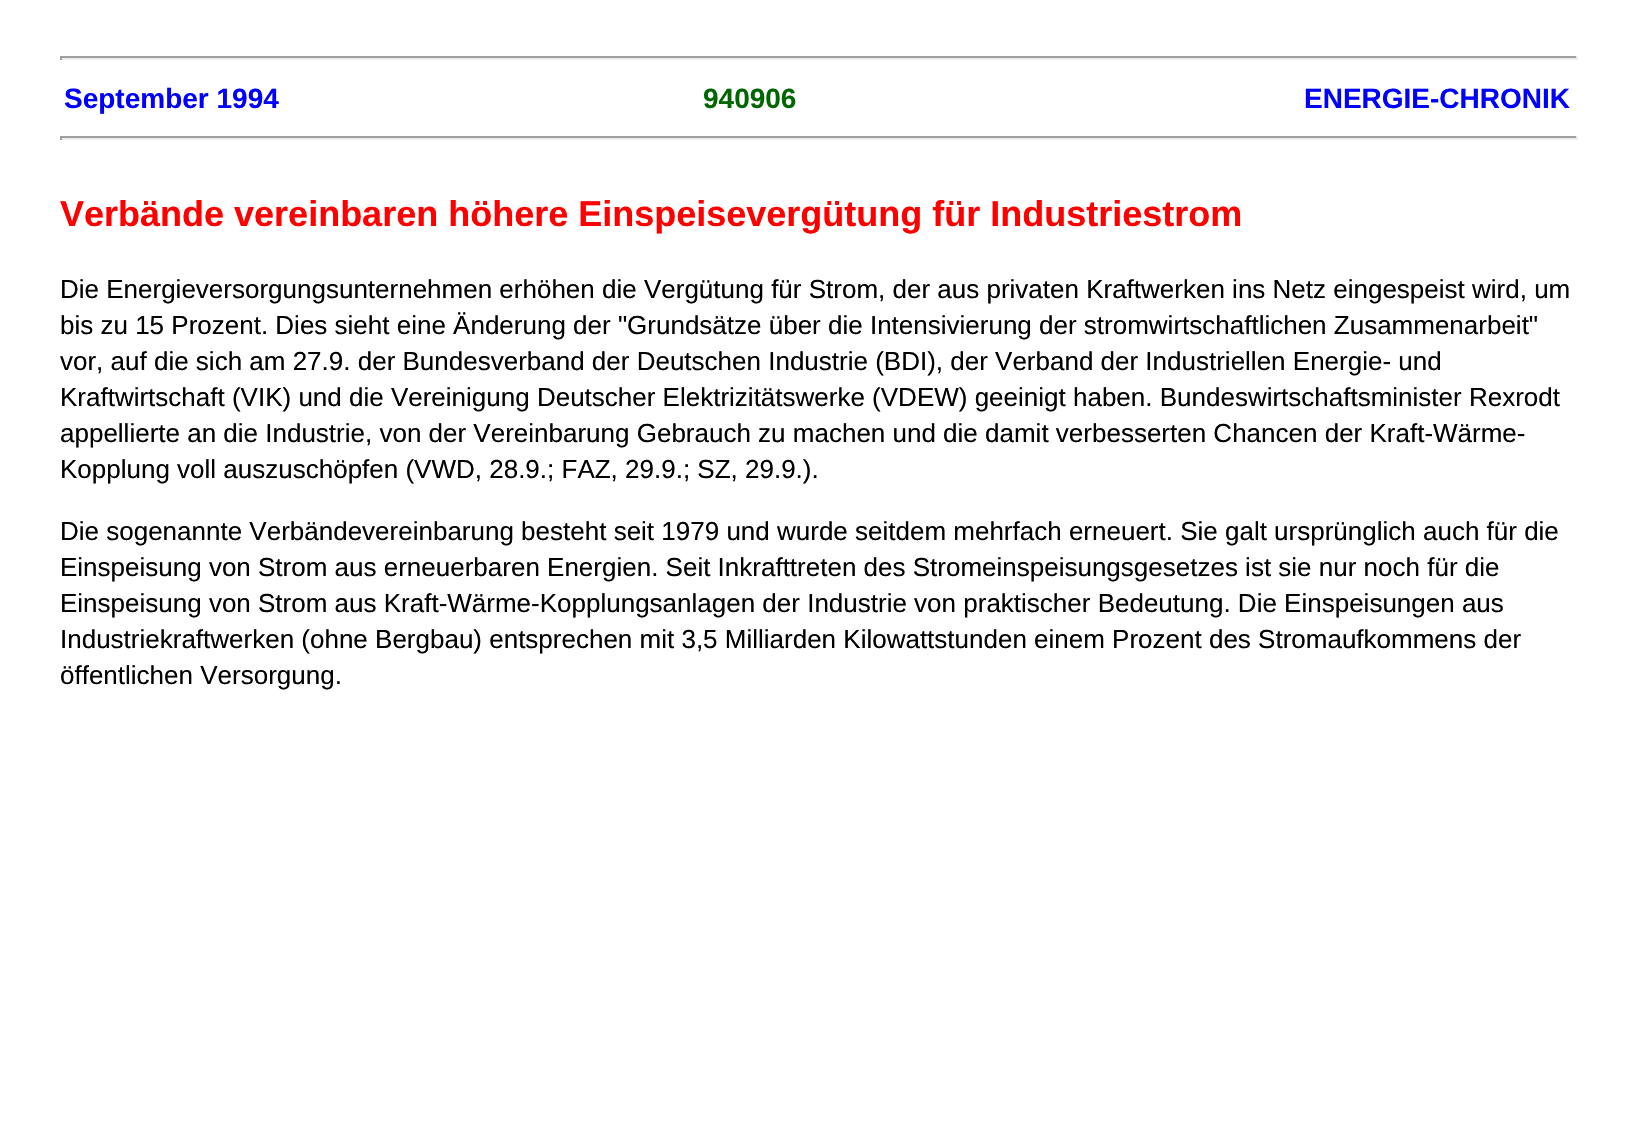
#include "include/core/SkBlurTypes.h"
#include "include/core/SkCanvas.h"
#include "include/core/SkData.h"
#include "include/core/SkFont.h"
#include "include/core/SkFontMgr.h"
#include "include/core/SkImage.h"
#include "include/core/SkMaskFilter.h"
#include "include/core/SkPaint.h"
#include "include/core/SkPathBuilder.h"
#include "include/core/SkTextBlob.h"
#include "include/effects/SkDashPathEffect.h"
#include "include/effects/SkGradientShader.h"
#include "include/utils/SkParsePath.h"

extern sk_sp<SkFontMgr> fontMgr;

void draw(SkCanvas* canvas) {
  SkPaint p;
  p.setAntiAlias(true);
  canvas->clear(SK_ColorWHITE);
  p.setColor(SkColorSetRGB(159, 159, 159));
  canvas->drawRect(SkRect::MakeLTRB(60, 56, 1578, 58), p);
  p.setColor(SkColorSetRGB(238, 238, 238));
  canvas->drawRect(SkRect::MakeLTRB(1576, 56, 1578, 60), p);
  canvas->drawRect(SkRect::MakeLTRB(60, 58, 1578, 60), p);
  p.setColor(SkColorSetRGB(159, 159, 159));
  canvas->drawRect(SkRect::MakeLTRB(60, 56, 62, 60), p);
  canvas->drawRect(SkRect::MakeLTRB(60, 136, 1578, 138), p);
  p.setColor(SkColorSetRGB(238, 238, 238));
  canvas->drawRect(SkRect::MakeLTRB(1576, 136, 1578, 140), p);
  canvas->drawRect(SkRect::MakeLTRB(60, 138, 1578, 140), p);
  p.setColor(SkColorSetRGB(159, 159, 159));
  canvas->drawRect(SkRect::MakeLTRB(60, 136, 62, 140), p);
  SkFont font1(fontMgr->matchFamilyStyle("Liberation Sans", SkFontStyle::Bold()), 28);
  font1.setSubpixel(true);
  p.setColor(SkColorSetRGB(0, 0, 255));
  canvas->drawString("September 1994", 64, 108, font1, p);
  p.setColor(SkColorSetRGB(0, 102, 0));
  canvas->drawString("940906", 703, 108, font1, p);
  p.setColor(SkColorSetRGB(0, 0, 255));
  canvas->drawString("ENERGIE-CHRONIK", 1304, 108, font1, p);
  SkFont font2(fontMgr->matchFamilyStyle("Liberation Sans", SkFontStyle::Bold()), 36);
  font2.setSubpixel(true);
  p.setColor(SkColorSetRGB(255, 0, 0));
  canvas->drawString("Verbände vereinbaren höhere Einspeisevergütung für Industriestrom", 60, 226, font2, p);
  SkFont font3(fontMgr->matchFamilyStyle("Liberation Sans", SkFontStyle::Normal()), 26);
  font3.setSubpixel(true);
  p.setColor(SK_ColorBLACK);
  canvas->drawString("Die Energieversorgungsunternehmen erhöhen die Vergütung für Strom, der aus privaten Kraftwerken ins Netz eingespeist wird, um", 60, 298, font3, p);
  canvas->drawString("bis zu 15 Prozent. Dies sieht eine Änderung der \"Grundsätze über die Intensivierung der stromwirtschaftlichen Zusammenarbeit\"", 60, 334, font3, p);
  canvas->drawString("vor, auf die sich am 27.9. der Bundesverband der Deutschen Industrie (BDI), der Verband der Industriellen Energie- und", 60, 370, font3, p);
  canvas->drawString("Kraftwirtschaft (VIK) und die Vereinigung Deutscher Elektrizitätswerke (VDEW) geeinigt haben. Bundeswirtschaftsminister Rexrodt", 60, 406, font3, p);
  canvas->drawString("appellierte an die Industrie, von der Vereinbarung Gebrauch zu machen und die damit verbesserten Chancen der Kraft-Wärme-", 60, 442, font3, p);
  canvas->drawString("Kopplung voll auszuschöpfen (VWD, 28.9.; FAZ, 29.9.; SZ, 29.9.).", 60, 478, font3, p);
  canvas->drawString("Die sogenannte Verbändevereinbarung besteht seit 1979 und wurde seitdem mehrfach erneuert. Sie galt ursprünglich auch für die", 60, 540, font3, p);
  canvas->drawString("Einspeisung von Strom aus erneuerbaren Energien. Seit Inkrafttreten des Stromeinspeisungsgesetzes ist sie nur noch für die", 60, 576, font3, p);
  canvas->drawString("Einspeisung von Strom aus Kraft-Wärme-Kopplungsanlagen der Industrie von praktischer Bedeutung. Die Einspeisungen aus", 60, 612, font3, p);
  canvas->drawString("Industriekraftwerken (ohne Bergbau) entsprechen mit 3,5 Milliarden Kilowattstunden einem Prozent des Stromaufkommens der", 60, 648, font3, p);
  canvas->drawString("öffentlichen Versorgung.", 60, 684, font3, p);
}
